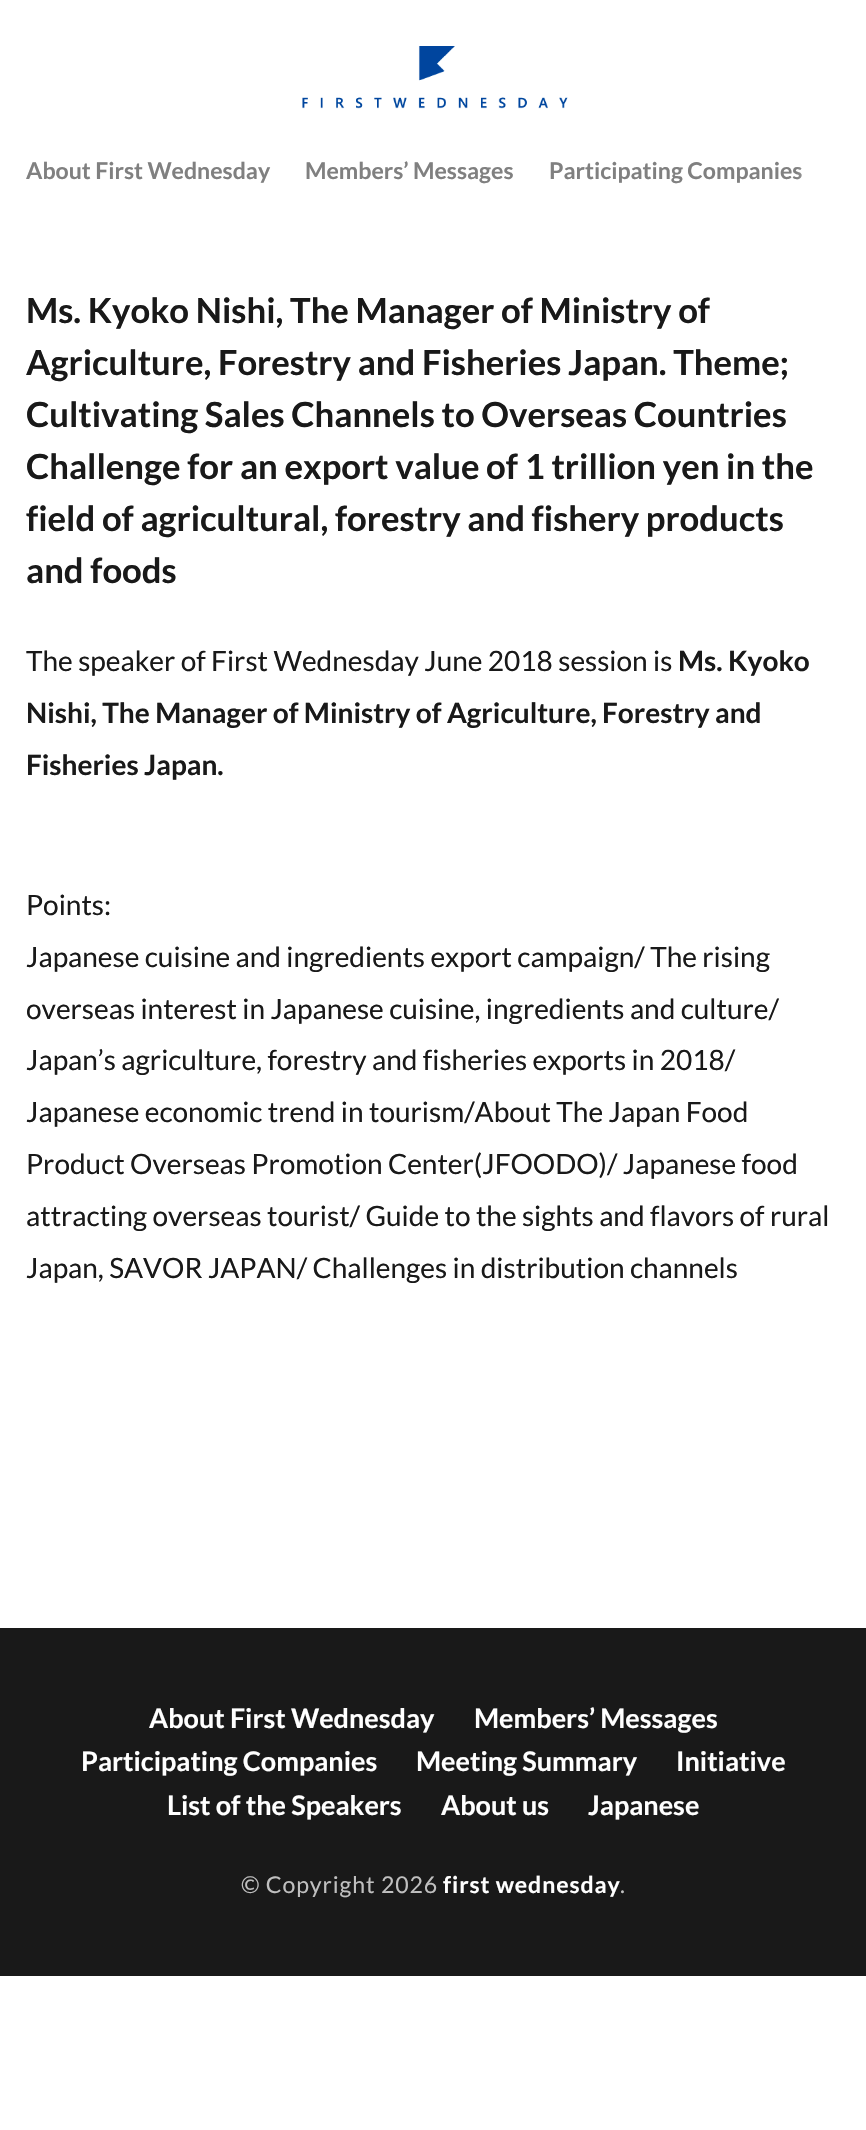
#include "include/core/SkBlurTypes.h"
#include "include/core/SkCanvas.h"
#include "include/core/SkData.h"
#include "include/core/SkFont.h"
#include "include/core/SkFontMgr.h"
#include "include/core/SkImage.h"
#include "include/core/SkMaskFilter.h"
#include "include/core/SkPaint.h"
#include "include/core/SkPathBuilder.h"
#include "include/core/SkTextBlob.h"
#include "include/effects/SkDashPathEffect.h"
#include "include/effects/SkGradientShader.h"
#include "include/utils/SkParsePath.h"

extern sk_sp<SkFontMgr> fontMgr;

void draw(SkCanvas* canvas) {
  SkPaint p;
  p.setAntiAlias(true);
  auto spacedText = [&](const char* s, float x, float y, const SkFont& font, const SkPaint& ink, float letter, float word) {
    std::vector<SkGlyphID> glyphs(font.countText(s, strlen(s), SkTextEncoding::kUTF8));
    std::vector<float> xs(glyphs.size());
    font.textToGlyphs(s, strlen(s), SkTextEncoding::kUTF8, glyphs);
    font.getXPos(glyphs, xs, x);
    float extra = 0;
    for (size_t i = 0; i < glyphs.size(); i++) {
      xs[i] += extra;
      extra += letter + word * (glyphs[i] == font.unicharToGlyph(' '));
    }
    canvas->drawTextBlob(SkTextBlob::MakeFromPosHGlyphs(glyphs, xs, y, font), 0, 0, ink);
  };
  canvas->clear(SK_ColorWHITE);
  canvas->drawImageRect(SkImages::DeferredFromEncodedData(SkData::MakeFromFileName("images/1.png")), SkRect::MakeLTRB(302, 46, 568, 109), SkSamplingOptions());
  p.setColor(SkColorSetRGB(25, 25, 25));
  canvas->drawRect(SkRect::MakeLTRB(0, 1628, 866, 1976), p);
  SkFont font1(fontMgr->matchFamilyStyle("Lato", SkFontStyle::Bold()), 23.1f);
  font1.setSubpixel(true);
  p.setColor(SkColorSetRGB(128, 128, 128));
  canvas->drawString("About First Wednesday", 26, 179, font1, p);
  canvas->drawString("Members’ Messages", 305, 179, font1, p);
  canvas->drawString("Participating Companies", 549, 179, font1, p);
  {
    const SkColor colors[] = {SkColorSetARGB(0, 255, 255, 255), SK_ColorWHITE};
    const float stops[] = {0, 1};
    const SkPoint ends[] = {{796, 149}, {840, 149}};
    p.setShader(SkGradientShader::MakeLinear(ends, colors, stops, 2, SkTileMode::kClamp));
    p.setAlpha(255);
  }
  canvas->drawRect(SkRect::MakeLTRB(797, 167, 802, 179), p);
  SkFont font2(fontMgr->matchFamilyStyle("Lato", SkFontStyle::Bold()), 34.65f);
  font2.setSubpixel(true);
  p.setShader(nullptr);
  p.setColor(SkColorSetRGB(25, 25, 25));
  canvas->drawString("Ms. Kyoko Nishi, The Manager of Ministry of", 26, 323, font2, p);
  canvas->drawString("Agriculture, Forestry and Fisheries Japan. Theme;", 26, 375, font2, p);
  canvas->drawString("Cultivating Sales Channels to Overseas Countries", 26, 427, font2, p);
  canvas->drawString("Challenge for an export value of 1 trillion yen in the", 26, 479, font2, p);
  canvas->drawString("field of agricultural, forestry and fishery products", 26, 531, font2, p);
  canvas->drawString("and foods", 26, 583, font2, p);
  SkFont font3(fontMgr->matchFamilyStyle("Lato", SkFontStyle::Normal()), 28);
  font3.setSubpixel(true);
  canvas->drawString("The speaker of First Wednesday June 2018 session is", 26, 671, font3, p);
  SkFont font4(fontMgr->matchFamilyStyle("Lato", SkFontStyle::Bold()), 28);
  font4.setSubpixel(true);
  canvas->drawString("Ms. Kyoko", 678, 671, font4, p);
  canvas->drawString("Nishi, The Manager of Ministry of Agriculture, Forestry and", 26, 723, font4, p);
  canvas->drawString("Fisheries Japan.", 26, 775, font4, p);
  canvas->drawString("Points:", 26, 915, font3, p);
  canvas->drawString("Japanese cuisine and ingredients export campaign/ The rising", 26, 967, font3, p);
  canvas->drawString("overseas interest in Japanese cuisine, ingredients and culture/", 26, 1019, font3, p);
  canvas->drawString("Japan’s agriculture, forestry and fisheries exports in 2018/", 26, 1070, font3, p);
  canvas->drawString("Japanese economic trend in tourism/About The Japan Food", 26, 1122, font3, p);
  canvas->drawString("Product Overseas Promotion Center(JFOODO)/ Japanese food", 26, 1174, font3, p);
  canvas->drawString("attracting overseas tourist/ Guide to the sights and flavors of rural", 26, 1226, font3, p);
  canvas->drawString("Japan, SAVOR JAPAN/ Challenges in distribution channels", 26, 1278, font3, p);
  SkFont font5(fontMgr->matchFamilyStyle("Lato", SkFontStyle::Bold()), 27);
  font5.setSubpixel(true);
  p.setColor(SK_ColorWHITE);
  canvas->drawString("About First Wednesday", 149, 1728, font5, p);
  canvas->drawString("Members’ Messages", 474, 1728, font5, p);
  canvas->drawString("Participating Companies", 81, 1771, font5, p);
  canvas->drawString("Meeting Summary", 416, 1771, font5, p);
  canvas->drawString("Initiative", 676, 1771, font5, p);
  canvas->drawString("List of the Speakers", 167, 1815, font5, p);
  canvas->drawString("About us", 441, 1815, font5, p);
  canvas->drawString("Japanese", 588, 1815, font5, p);
  SkFont font6(fontMgr->matchFamilyStyle("Lato", SkFontStyle::Normal()), 23.1f);
  font6.setSubpixel(true);
  p.setColor(SkColorSetRGB(191, 191, 191));
  spacedText("© Copyright 2026", 241, 1893, font6, p, 0.9f, 0);
  p.setColor(SK_ColorWHITE);
  spacedText("first wednesday", 443, 1893, font1, p, 0.9f, 0);
  p.setColor(SkColorSetRGB(191, 191, 191));
  spacedText(".", 620, 1893, font6, p, 0.9f, 0);
}
